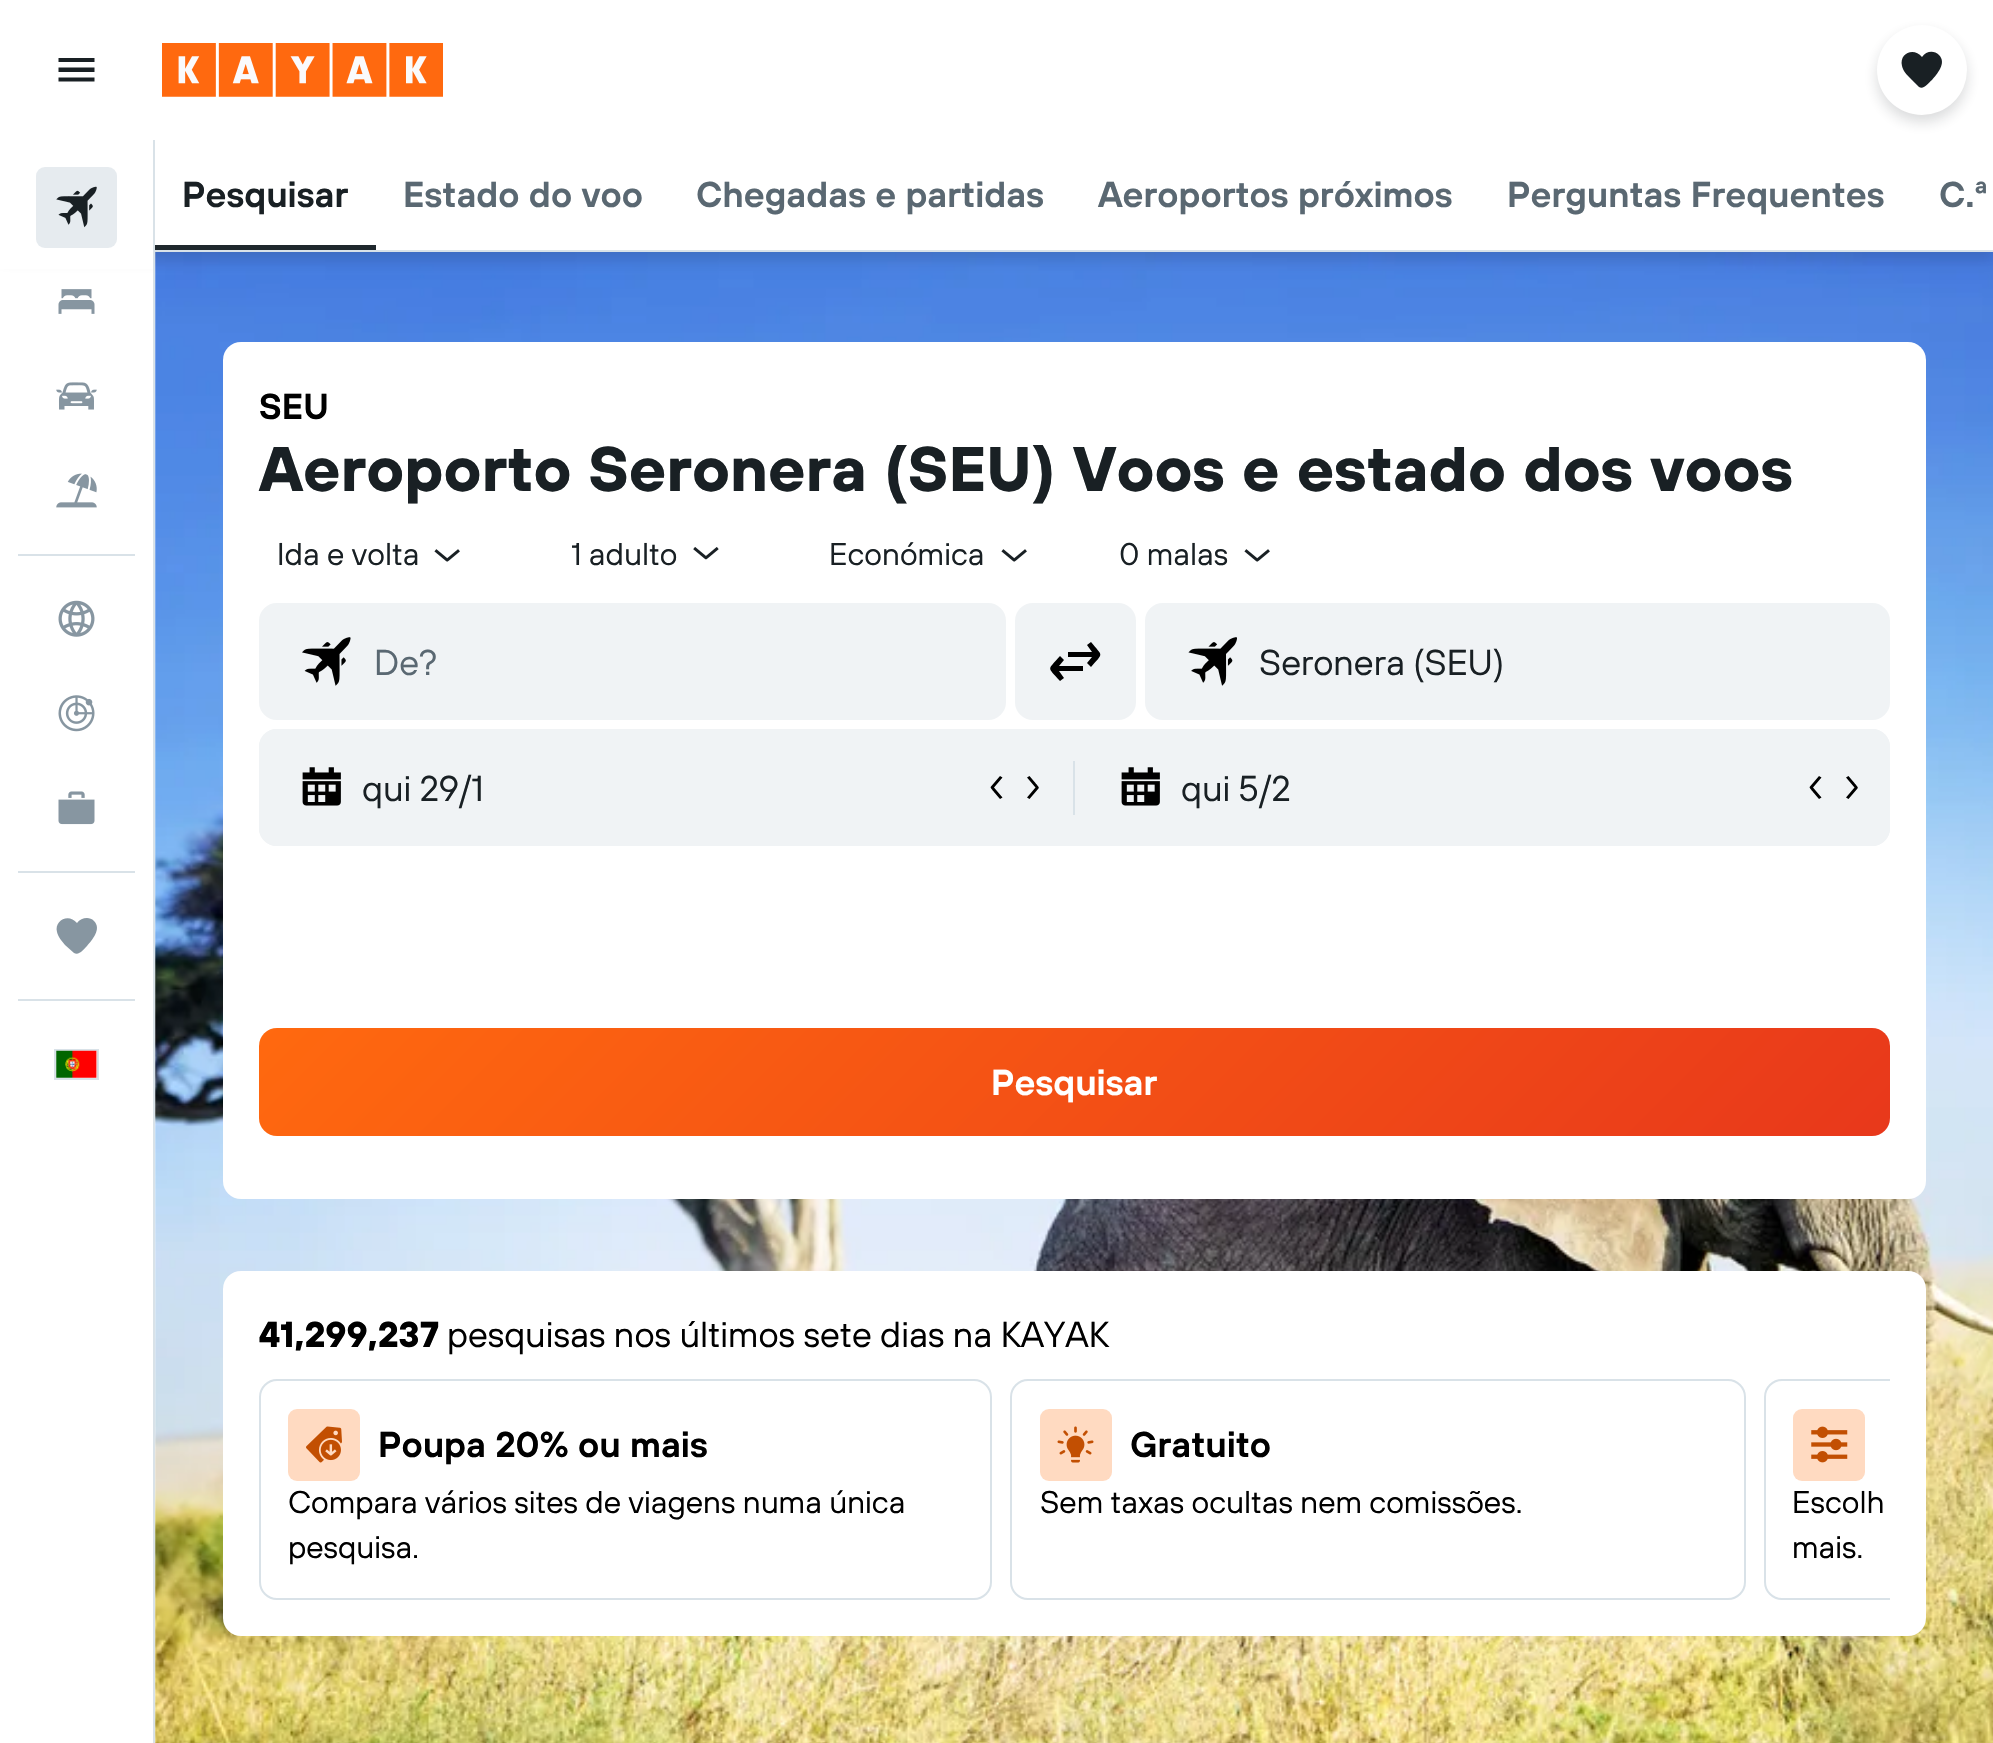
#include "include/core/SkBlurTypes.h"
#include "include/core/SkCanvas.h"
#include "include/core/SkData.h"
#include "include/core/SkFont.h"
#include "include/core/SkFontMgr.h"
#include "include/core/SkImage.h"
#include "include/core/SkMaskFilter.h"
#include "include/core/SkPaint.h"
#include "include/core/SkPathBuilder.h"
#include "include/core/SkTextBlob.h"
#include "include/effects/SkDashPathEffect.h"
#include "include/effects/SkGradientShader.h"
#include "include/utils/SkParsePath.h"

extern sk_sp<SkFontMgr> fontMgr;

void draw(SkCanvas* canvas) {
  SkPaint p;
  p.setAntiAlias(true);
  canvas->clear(SK_ColorWHITE);
  p.setColor(SkColorSetRGB(25, 32, 36));
  canvas->drawPath(SkPathBuilder().moveTo(58.5f, 81.5f).lineTo(94.5f, 81.5f).lineTo(94.5f, 77.5f).lineTo(58.5f, 77.5f).close().moveTo(58.5f, 72).lineTo(94.5f, 72).lineTo(94.5f, 67.5f).lineTo(58.5f, 67.5f).close().moveTo(58.5f, 58).lineTo(58.5f, 62).lineTo(94.5f, 62).lineTo(94.5f, 58).close().detach(), p);
  canvas->drawImageRect(SkImages::DeferredFromEncodedData(SkData::MakeFromFileName("images/1.png")), SkRect::MakeLTRB(162, 43, 443, 97), SkSamplingOptions());
  canvas->drawImageRect(SkImages::DeferredFromEncodedData(SkData::MakeFromFileName("images/10.png")), SkRect::MakeLTRB(155, 252, 1993, 1743), SkSamplingOptions());
  canvas->save();
  canvas->clipRect(SkRect::MakeLTRB(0, 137, 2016, 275));
  p.setColor(SkColorSetARGB(41, 25, 32, 36));
  p.setMaskFilter(SkMaskFilter::MakeBlur(kNormal_SkBlurStyle, 7));
  canvas->drawRect(SkRect::MakeLTRB(0, 144, 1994, 259), p);
  p.setMaskFilter(nullptr);
  canvas->restore();
  p.setColor(SK_ColorWHITE);
  canvas->drawRect(SkRect::MakeLTRB(0, 137, 1993, 250), p);
  p.setColor(SkColorSetARGB(41, 25, 32, 36));
  p.setMaskFilter(SkMaskFilter::MakeBlur(kNormal_SkBlurStyle, 7));
  canvas->drawRoundRect(SkRect::MakeLTRB(1877, 32, 1967, 122), 45, 45, p);
  p.setMaskFilter(nullptr);
  p.setColor(SK_ColorWHITE);
  canvas->drawCircle(1922, 70, 45, p);
  p.setColor(SkColorSetRGB(25, 32, 36));
  canvas->drawPath(SkPathBuilder().moveTo(1939, 55).cubicTo(1934, 50, 1926, 51, 1922, 57).cubicTo(1914, 47, 1899, 53, 1902, 66).cubicTo(1903, 71, 1907, 75, 1910, 78).lineTo(1919, 87).cubicTo(1924, 90, 1929, 82, 1932, 80).cubicTo(1937, 74, 1947, 63, 1939, 55).close().detach(), p);
  p.setColor(SK_ColorWHITE);
  canvas->drawRect(SkRect::MakeLTRB(0, 250, 153, 269), p);
  p.setColor(SkColorSetRGB(217, 226, 232));
  canvas->drawRect(SkRect::MakeLTRB(153, 140, 155, 1743), p);
  p.setColor(SkColorSetRGB(230, 235, 239));
  canvas->drawRoundRect(SkRect::MakeLTRB(36, 167, 117, 248), 9, 9, p);
  canvas->drawImageRect(SkImages::DeferredFromEncodedData(SkData::MakeFromFileName("images/2.png")), SkRect::MakeLTRB(56, 186, 97, 228), SkSamplingOptions());
  canvas->drawImageRect(SkImages::DeferredFromEncodedData(SkData::MakeFromFileName("images/3.png")), SkRect::MakeLTRB(58, 289, 95, 314), SkSamplingOptions());
  canvas->drawImageRect(SkImages::DeferredFromEncodedData(SkData::MakeFromFileName("images/4.png")), SkRect::MakeLTRB(56, 382, 97, 410), SkSamplingOptions());
  canvas->drawImageRect(SkImages::DeferredFromEncodedData(SkData::MakeFromFileName("images/5.png")), SkRect::MakeLTRB(56, 473, 97, 508), SkSamplingOptions());
  p.setColor(SkColorSetRGB(217, 226, 232));
  canvas->drawRect(SkRect::MakeLTRB(18, 554, 135, 556), p);
  canvas->drawImageRect(SkImages::DeferredFromEncodedData(SkData::MakeFromFileName("images/6.png")), SkRect::MakeLTRB(58, 600, 95, 637), SkSamplingOptions());
  canvas->drawImageRect(SkImages::DeferredFromEncodedData(SkData::MakeFromFileName("images/7.png")), SkRect::MakeLTRB(58, 695, 95, 732), SkSamplingOptions());
  canvas->drawImageRect(SkImages::DeferredFromEncodedData(SkData::MakeFromFileName("images/8.png")), SkRect::MakeLTRB(58, 791, 95, 825), SkSamplingOptions());
  canvas->drawRect(SkRect::MakeLTRB(18, 871, 135, 873), p);
  p.setColor(SkColorSetRGB(135, 150, 161));
  canvas->drawPath(SkPathBuilder().moveTo(94, 921).cubicTo(89, 916, 81, 918, 77, 923).cubicTo(69, 913, 54, 920, 57, 932).cubicTo(58, 937, 62, 941, 65, 945).lineTo(74, 953).cubicTo(79, 956, 84, 949, 87, 946).cubicTo(92, 940, 102, 929, 94, 921).close().detach(), p);
  p.setColor(SkColorSetRGB(217, 226, 232));
  canvas->drawRect(SkRect::MakeLTRB(18, 999, 135, 1001), p);
  p.setStyle(SkPaint::kStroke_Style);
  p.setStrokeWidth(2);
  canvas->drawRect(SkRect::MakeLTRB(55, 1050, 98, 1079), p);
  canvas->drawImageRect(SkImages::DeferredFromEncodedData(SkData::MakeFromFileName("images/9.png")), SkRect::MakeLTRB(56, 1050, 98, 1078), SkSamplingOptions());
  p.setStyle(SkPaint::kFill_Style);
  canvas->drawRect(SkRect::MakeLTRB(155, 250, 1993, 252), p);
  p.setColor(SkColorSetRGB(31, 40, 45));
  canvas->drawRect(SkRect::MakeLTRB(155, 245, 376, 250), p);
  p.setColor(SK_ColorWHITE);
  canvas->drawRoundRect(SkRect::MakeLTRB(223, 342, 1926, 1199), 18, 18, p);
  canvas->drawImageRect(SkImages::DeferredFromEncodedData(SkData::MakeFromFileName("images/11.png")), SkRect::MakeLTRB(434, 549, 460, 562), SkSamplingOptions());
  canvas->drawImageRect(SkImages::DeferredFromEncodedData(SkData::MakeFromFileName("images/12.png")), SkRect::MakeLTRB(693, 547, 719, 560), SkSamplingOptions());
  canvas->drawImageRect(SkImages::DeferredFromEncodedData(SkData::MakeFromFileName("images/11.png")), SkRect::MakeLTRB(1001, 549, 1027, 562), SkSamplingOptions());
  canvas->drawImageRect(SkImages::DeferredFromEncodedData(SkData::MakeFromFileName("images/11.png")), SkRect::MakeLTRB(1244, 549, 1270, 562), SkSamplingOptions());
  p.setColor(SkColorSetRGB(240, 243, 245));
  canvas->drawRoundRect(SkRect::MakeLTRB(260, 604, 1005, 719), 17, 17, p);
  p.setStyle(SkPaint::kStroke_Style);
  canvas->drawRoundRect(SkRect::MakeLTRB(260, 604, 1005, 719), 17, 17, p);
  canvas->drawImageRect(SkImages::DeferredFromEncodedData(SkData::MakeFromFileName("images/13.png")), SkRect::MakeLTRB(302, 637, 351, 686), SkSamplingOptions());
  p.setStyle(SkPaint::kFill_Style);
  canvas->drawRoundRect(SkRect::MakeLTRB(1015, 603, 1136, 720), 18, 18, p);
  p.setColor(SK_ColorBLACK);
  canvas->drawPath(SkPathBuilder().moveTo(1060, 681).cubicTo(1047, 666, 1047, 671, 1060, 656).lineTo(1064, 660).lineTo(1059, 666).lineTo(1083, 666).lineTo(1083, 671).lineTo(1059, 671).lineTo(1064, 678).close().moveTo(1091, 667).lineTo(1087, 663).lineTo(1092, 657).lineTo(1068, 657).lineTo(1068, 652).lineTo(1092, 652).lineTo(1087, 645).lineTo(1091, 642).cubicTo(1103, 657, 1104, 652, 1091, 667).close().detach(), p);
  p.setColor(SkColorSetRGB(240, 243, 245));
  canvas->drawRoundRect(SkRect::MakeLTRB(1146, 604, 1889, 719), 17, 17, p);
  p.setStyle(SkPaint::kStroke_Style);
  canvas->drawRoundRect(SkRect::MakeLTRB(1146, 604, 1889, 719), 17, 17, p);
  canvas->drawImageRect(SkImages::DeferredFromEncodedData(SkData::MakeFromFileName("images/14.png")), SkRect::MakeLTRB(1188, 637, 1237, 686), SkSamplingOptions());
  p.setStyle(SkPaint::kFill_Style);
  canvas->drawRoundRect(SkRect::MakeLTRB(259, 729, 1890, 846), 18, 18, p);
  canvas->drawRoundRect(SkRect::MakeLTRB(259, 729, 1071, 846), 18, 18, p);
  canvas->drawImageRect(SkImages::DeferredFromEncodedData(SkData::MakeFromFileName("images/15.png")), SkRect::MakeLTRB(302, 767, 341, 806), SkSamplingOptions());
  p.setColor(SK_ColorBLACK);
  canvas->drawPath(SkPathBuilder().moveTo(1000, 799).cubicTo(990.5f, 787.5f, 990, 788, 991, 786.5f).lineTo(1000, 776).lineTo(1002.5f, 777.5f).lineTo(994, 787.5f).lineTo(1002.5f, 797.5f).close().moveTo(1029.5f, 799).lineTo(1027, 797.5f).lineTo(1035.5f, 787.5f).lineTo(1027, 777.5f).lineTo(1029.5f, 776).cubicTo(1039, 787.5f, 1039.5f, 787, 1038.5f, 788.5f).close().detach(), p);
  p.setColor(SkColorSetRGB(217, 226, 232));
  canvas->drawRect(SkRect::MakeLTRB(1073, 761, 1075, 815), p);
  p.setColor(SkColorSetRGB(240, 243, 245));
  canvas->drawRoundRect(SkRect::MakeLTRB(1078, 729, 1890, 846), 18, 18, p);
  canvas->drawImageRect(SkImages::DeferredFromEncodedData(SkData::MakeFromFileName("images/15.png")), SkRect::MakeLTRB(1121, 767, 1160, 806), SkSamplingOptions());
  p.setColor(SK_ColorBLACK);
  canvas->drawPath(SkPathBuilder().moveTo(1819, 799).cubicTo(1809.5f, 787.5f, 1809, 788, 1810, 786.5f).lineTo(1819, 776).lineTo(1821.5f, 777.5f).lineTo(1813, 787.5f).lineTo(1821.5f, 797.5f).close().moveTo(1848.5f, 799).lineTo(1846, 797.5f).lineTo(1854.5f, 787.5f).lineTo(1846, 777.5f).lineTo(1848.5f, 776).cubicTo(1858, 787.5f, 1858.5f, 787, 1857.5f, 788.5f).close().detach(), p);
  {
    const SkColor colors[] = {SkColorSetRGB(255, 105, 15), SkColorSetRGB(232, 56, 27)};
    const float stops[] = {0, 1};
    const SkPoint ends[] = {{640, 647}, {1509, 1517}};
    p.setShader(SkGradientShader::MakeLinear(ends, colors, stops, 2, SkTileMode::kClamp));
    p.setAlpha(255);
  }
  canvas->drawRoundRect(SkRect::MakeLTRB(259, 1028, 1890, 1136), 18, 18, p);
  p.setShader(nullptr);
  p.setColor(SK_ColorWHITE);
  canvas->drawRoundRect(SkRect::MakeLTRB(223, 1271, 1926, 1636), 18, 18, p);
  p.setStyle(SkPaint::kStroke_Style);
  p.setColor(SkColorSetRGB(217, 226, 232));
  canvas->drawRoundRect(SkRect::MakeLTRB(260, 1380, 991, 1599), 17, 17, p);
  p.setStyle(SkPaint::kFill_Style);
  p.setColor(SkColorSetRGB(255, 218, 193));
  canvas->drawRoundRect(SkRect::MakeLTRB(288, 1409, 360, 1481), 9, 9, p);
  canvas->drawImageRect(SkImages::DeferredFromEncodedData(SkData::MakeFromFileName("images/16.png")), SkRect::MakeLTRB(306, 1426, 342, 1463), SkSamplingOptions());
  p.setStyle(SkPaint::kStroke_Style);
  p.setColor(SkColorSetRGB(217, 226, 232));
  canvas->drawRoundRect(SkRect::MakeLTRB(1011, 1380, 1745, 1599), 17, 17, p);
  p.setStyle(SkPaint::kFill_Style);
  p.setColor(SkColorSetRGB(255, 218, 193));
  canvas->drawRoundRect(SkRect::MakeLTRB(1040, 1409, 1112, 1481), 9, 9, p);
  canvas->drawImageRect(SkImages::DeferredFromEncodedData(SkData::MakeFromFileName("images/17.png")), SkRect::MakeLTRB(1057, 1426, 1094, 1463), SkSamplingOptions());
  canvas->save();
  canvas->clipRect(SkRect::MakeLTRB(259, 1379, 1890, 1600));
  p.setStyle(SkPaint::kStroke_Style);
  p.setColor(SkColorSetRGB(217, 226, 232));
  canvas->drawRoundRect(SkRect::MakeLTRB(1765, 1380, 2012, 1599), 17, 17, p);
  canvas->restore();
  p.setStyle(SkPaint::kFill_Style);
  p.setColor(SkColorSetRGB(255, 218, 193));
  canvas->drawRoundRect(SkRect::MakeLTRB(1793, 1409, 1865, 1481), 9, 9, p);
  canvas->drawImageRect(SkImages::DeferredFromEncodedData(SkData::MakeFromFileName("images/18.png")), SkRect::MakeLTRB(1811, 1426, 1848, 1463), SkSamplingOptions());
  SkFont font1(fontMgr->matchFamilyStyle("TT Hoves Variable", SkFontStyle(600, SkFontStyle::kNormal_Width, SkFontStyle::kUpright_Slant)), 36);
  font1.setSubpixel(true);
  p.setColor(SkColorSetRGB(25, 32, 36));
  canvas->drawString("Pesquisar", 182, 207, font1, p);
  p.setColor(SkColorSetRGB(90, 104, 114));
  canvas->drawString("Estado do voo", 403, 207, font1, p);
  canvas->drawString("Chegadas e partidas", 696, 207, font1, p);
  canvas->drawString("Aeroportos próximos", 1098, 207, font1, p);
  canvas->drawString("Perguntas Frequentes", 1507, 207, font1, p);
  canvas->drawString("C.ª", 1939, 207, font1, p);
  p.setColor(SK_ColorBLACK);
  canvas->drawString("SEU", 259, 419, font1, p);
  SkFont font2(fontMgr->matchFamilyStyle("TT Hoves Variable", SkFontStyle::Bold()), 63);
  font2.setSubpixel(true);
  p.setColor(SkColorSetRGB(25, 32, 36));
  canvas->drawString("Aeroporto Seronera (SEU) Voos e estado dos voos", 259, 491, font2, p);
  SkFont font3(fontMgr->matchFamilyStyle("TT Hoves Variable", SkFontStyle::Normal()), 31.5f);
  font3.setSubpixel(true);
  canvas->drawString("Ida e volta", 277, 565, font3, p);
  canvas->save();
  canvas->clipRect(SkRect::MakeLTRB(572, 531, 727, 576));
  canvas->drawString("1 adulto", 571, 565, font3, p);
  canvas->restore();
  canvas->drawString("Económica", 829, 565, font3, p);
  canvas->drawString("0 malas", 1119, 565, font3, p);
  SkFont font4(fontMgr->matchFamilyStyle("TT Hoves Variable", SkFontStyle::Normal()), 36);
  font4.setSubpixel(true);
  p.setColor(SkColorSetRGB(90, 104, 114));
  canvas->drawString("De?", 374, 675, font4, p);
  p.setColor(SkColorSetRGB(25, 32, 36));
  canvas->drawString("Seronera (SEU)", 1259, 675, font4, p);
  canvas->drawString("qui 29/1", 362, 801, font4, p);
  canvas->drawString("qui 5/2", 1181, 801, font4, p);
  p.setColor(SK_ColorWHITE);
  canvas->drawString("Pesquisar", 991, 1095, font1, p);
  SkFont font5(fontMgr->matchFamilyStyle("TT Hoves Variable", SkFontStyle::Bold()), 36);
  font5.setSubpixel(true);
  p.setColor(SK_ColorBLACK);
  canvas->drawString("41,299,237", 259, 1347, font5, p);
  canvas->drawString("pesquisas nos últimos sete dias na KAYAK", 447, 1347, font4, p);
  canvas->drawString("Poupa 20% ou mais", 378, 1457, font1, p);
  canvas->drawString("Compara vários sites de viagens numa única", 288, 1513, font3, p);
  canvas->drawString("pesquisa.", 288, 1558, font3, p);
  canvas->drawString("Gratuito", 1130, 1457, font1, p);
  canvas->drawString("Sem taxas ocultas nem comissões.", 1040, 1513, font3, p);
  canvas->drawString("Escolh", 1792, 1513, font3, p);
  canvas->drawString("mais.", 1792, 1558, font3, p);
}
